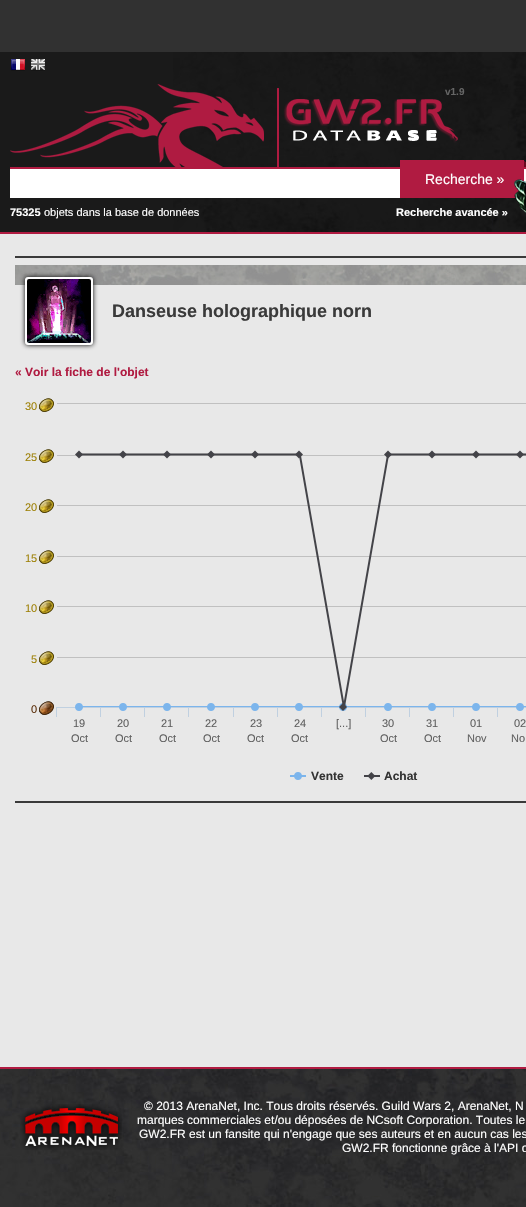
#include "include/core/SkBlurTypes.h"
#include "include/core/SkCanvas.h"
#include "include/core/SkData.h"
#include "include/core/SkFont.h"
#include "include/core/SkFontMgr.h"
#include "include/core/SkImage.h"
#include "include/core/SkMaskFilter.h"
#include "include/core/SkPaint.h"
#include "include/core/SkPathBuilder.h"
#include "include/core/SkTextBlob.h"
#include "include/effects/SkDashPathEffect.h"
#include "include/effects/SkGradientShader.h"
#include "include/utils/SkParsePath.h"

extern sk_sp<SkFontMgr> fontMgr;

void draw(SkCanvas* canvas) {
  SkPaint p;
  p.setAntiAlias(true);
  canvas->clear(SkColorSetRGB(49, 49, 49));
  canvas->drawImageRect(SkImages::DeferredFromEncodedData(SkData::MakeFromFileName("images/1.png")), SkRect::MakeLTRB(0, 1069, 526, 1207), SkSamplingOptions());
  p.setColor(SkColorSetRGB(176, 27, 65));
  canvas->drawRect(SkRect::MakeLTRB(0, 232, 526, 234), p);
  p.setColor(SkColorSetRGB(26, 26, 26));
  canvas->drawRect(SkRect::MakeLTRB(0, 52, 173, 232), p);
  canvas->drawImageRect(SkImages::DeferredFromEncodedData(SkData::MakeFromFileName("images/2.png")), SkRect::MakeLTRB(173, 52, 526, 232), SkSamplingOptions());
  canvas->drawImageRect(SkImages::DeferredFromEncodedData(SkData::MakeFromFileName("images/3.png")), SkRect::MakeLTRB(11, 59, 25, 71), SkSamplingOptions());
  canvas->drawImageRect(SkImages::DeferredFromEncodedData(SkData::MakeFromFileName("images/4.png")), SkRect::MakeLTRB(31, 59, 45, 71), SkSamplingOptions());
  canvas->drawImageRect(SkImages::DeferredFromEncodedData(SkData::MakeFromFileName("images/5.png")), SkRect::MakeLTRB(10, 84, 458, 167), SkSamplingOptions());
  p.setColor(SK_ColorWHITE);
  canvas->drawRect(SkRect::MakeLTRB(10, 169, 526, 198), p);
  p.setColor(SkColorSetRGB(176, 27, 65));
  canvas->drawRect(SkRect::MakeLTRB(10, 167, 526, 169), p);
  canvas->drawImageRect(SkImages::DeferredFromEncodedData(SkData::MakeFromFileName("images/6.png")), SkRect::MakeLTRB(400, 160, 526, 198), SkSamplingOptions());
  canvas->drawImageRect(SkImages::DeferredFromEncodedData(SkData::MakeFromFileName("images/7.png")), SkRect::MakeLTRB(514, 179, 526, 213), SkSamplingOptions());
  canvas->drawRect(SkRect::MakeLTRB(0, 1067, 526, 1069), p);
  p.setColor(SkColorSetRGB(232, 232, 232));
  canvas->drawRect(SkRect::MakeLTRB(0, 234, 526, 1067), p);
  p.setColor(SkColorSetRGB(58, 58, 58));
  canvas->drawRect(SkRect::MakeLTRB(15, 256, 526, 258), p);
  canvas->drawImageRect(SkImages::DeferredFromEncodedData(SkData::MakeFromFileName("images/8.png")), SkRect::MakeLTRB(15, 265, 526, 285), SkSamplingOptions());
  p.setColor(SK_ColorBLACK);
  p.setMaskFilter(SkMaskFilter::MakeBlur(kNormal_SkBlurStyle, 2.5f));
  canvas->drawRoundRect(SkRect::MakeLTRB(25, 277, 93, 345), 3, 3, p);
  p.setMaskFilter(nullptr);
  p.setColor(SK_ColorWHITE);
  canvas->drawRoundRect(SkRect::MakeLTRB(25, 277, 93, 345), 3, 3, p);
  canvas->drawImageRect(SkImages::DeferredFromEncodedData(SkData::MakeFromFileName("images/9.png")), SkRect::MakeLTRB(27, 279, 91, 343), SkSamplingOptions());
  canvas->drawImageRect(SkImages::DeferredFromEncodedData(SkData::MakeFromFileName("images/10.png")), SkRect::MakeLTRB(39, 398, 54, 412), SkSamplingOptions());
  canvas->drawImageRect(SkImages::DeferredFromEncodedData(SkData::MakeFromFileName("images/10.png")), SkRect::MakeLTRB(39, 449, 54, 463), SkSamplingOptions());
  canvas->drawImageRect(SkImages::DeferredFromEncodedData(SkData::MakeFromFileName("images/10.png")), SkRect::MakeLTRB(39, 499, 54, 513), SkSamplingOptions());
  canvas->drawImageRect(SkImages::DeferredFromEncodedData(SkData::MakeFromFileName("images/10.png")), SkRect::MakeLTRB(39, 550, 54, 564), SkSamplingOptions());
  canvas->drawImageRect(SkImages::DeferredFromEncodedData(SkData::MakeFromFileName("images/10.png")), SkRect::MakeLTRB(39, 600, 54, 614), SkSamplingOptions());
  canvas->drawImageRect(SkImages::DeferredFromEncodedData(SkData::MakeFromFileName("images/10.png")), SkRect::MakeLTRB(39, 651, 54, 665), SkSamplingOptions());
  canvas->drawImageRect(SkImages::DeferredFromEncodedData(SkData::MakeFromFileName("images/11.png")), SkRect::MakeLTRB(39, 701, 54, 715), SkSamplingOptions());
  canvas->drawImageRect(SkImages::DeferredFromEncodedData(SkData::MakeFromFileName("images/12.png")), SkRect::MakeLTRB(56, 403, 526, 780), SkSamplingOptions());
  p.setColor(SkColorSetRGB(58, 58, 58));
  canvas->drawRect(SkRect::MakeLTRB(15, 801, 526, 803), p);
  canvas->drawImageRect(SkImages::DeferredFromEncodedData(SkData::MakeFromFileName("images/13.png")), SkRect::MakeLTRB(20, 1104, 122, 1150), SkSamplingOptions());
  SkFont font1(fontMgr->matchFamilyStyle("Liberation Sans", SkFontStyle::Bold()), 10);
  font1.setSubpixel(true);
  p.setColor(SkColorSetRGB(102, 102, 102));
  canvas->drawString("v1.9", 445, 95, font1, p);
  SkFont font2(fontMgr->matchFamilyStyle("Liberation Sans", SkFontStyle::Normal()), 14);
  font2.setSubpixel(true);
  p.setColor(SK_ColorWHITE);
  canvas->drawString("Recherche »", 425, 184, font2, p);
  SkFont font3(fontMgr->matchFamilyStyle("Liberation Sans", SkFontStyle::Bold()), 11);
  font3.setSubpixel(true);
  canvas->drawString("75325", 10, 216, font3, p);
  SkFont font4(fontMgr->matchFamilyStyle("Liberation Sans", SkFontStyle::Normal()), 11);
  font4.setSubpixel(true);
  canvas->drawString("objets dans la base de données", 44, 216, font4, p);
  canvas->drawString("Recherche avancée »", 396, 216, font3, p);
  SkFont font5(fontMgr->matchFamilyStyle("Liberation Sans", SkFontStyle::Bold()), 18);
  font5.setSubpixel(true);
  p.setColor(SkColorSetRGB(58, 58, 58));
  canvas->drawString("Danseuse holographique norn", 112, 317, font5, p);
  SkFont font6(fontMgr->matchFamilyStyle("Liberation Sans", SkFontStyle::Bold()), 12);
  font6.setSubpixel(true);
  p.setColor(SkColorSetRGB(176, 27, 65));
  canvas->drawString("« Voir la fiche de l'objet", 15, 376, font6, p);
  p.setColor(SkColorSetRGB(158, 129, 7));
  canvas->drawString("30", 25, 410, font4, p);
  canvas->drawString("25", 25, 461, font4, p);
  canvas->drawString("20", 25, 511, font4, p);
  canvas->drawString("15", 25, 562, font4, p);
  canvas->drawString("10", 25, 612, font4, p);
  canvas->drawString("5", 31, 663, font4, p);
  p.setColor(SkColorSetRGB(93, 49, 13));
  canvas->drawString("0", 31, 713, font4, p);
  p.setColor(SkColorSetRGB(96, 96, 96));
  canvas->drawString("19", 73, 727, font4, p);
  canvas->drawString("20", 117, 727, font4, p);
  canvas->drawString("21", 161, 727, font4, p);
  canvas->drawString("22", 205, 727, font4, p);
  canvas->drawString("23", 250, 727, font4, p);
  canvas->drawString("24", 294, 727, font4, p);
  canvas->drawString("[...]", 336, 727, font4, p);
  canvas->drawString("30", 382, 727, font4, p);
  canvas->drawString("31", 426, 727, font4, p);
  canvas->drawString("01", 470, 727, font4, p);
  canvas->drawString("02", 514, 727, font4, p);
  canvas->drawString("Oct", 71, 742, font4, p);
  canvas->drawString("Oct", 115, 742, font4, p);
  canvas->drawString("Oct", 159, 742, font4, p);
  canvas->drawString("Oct", 203, 742, font4, p);
  canvas->drawString("Oct", 247, 742, font4, p);
  canvas->drawString("Oct", 291, 742, font4, p);
  canvas->drawString("Oct", 380, 742, font4, p);
  canvas->drawString("Oct", 424, 742, font4, p);
  canvas->drawString("Nov", 467, 742, font4, p);
  canvas->drawString("No", 511, 742, font4, p);
  p.setColor(SkColorSetRGB(51, 51, 51));
  canvas->drawString("Vente", 311, 780, font6, p);
  canvas->drawString("Achat", 384, 780, font6, p);
  SkFont font7(fontMgr->matchFamilyStyle("Liberation Sans", SkFontStyle::Normal()), 12);
  font7.setSubpixel(true);
  p.setColor(SK_ColorWHITE);
  canvas->drawString("© 2013 ArenaNet, Inc. Tous droits réservés. Guild Wars 2, ArenaNet, N", 144, 1110, font7, p);
  canvas->drawString("marques commerciales et/ou déposées de NCsoft Corporation. Toutes le", 137, 1124, font7, p);
  canvas->drawString("GW2.FR est un fansite qui n'engage que ses auteurs et en aucun cas les", 139, 1138, font7, p);
  canvas->drawString("GW2.FR fonctionne grâce à l'API o", 342, 1152, font7, p);
}
